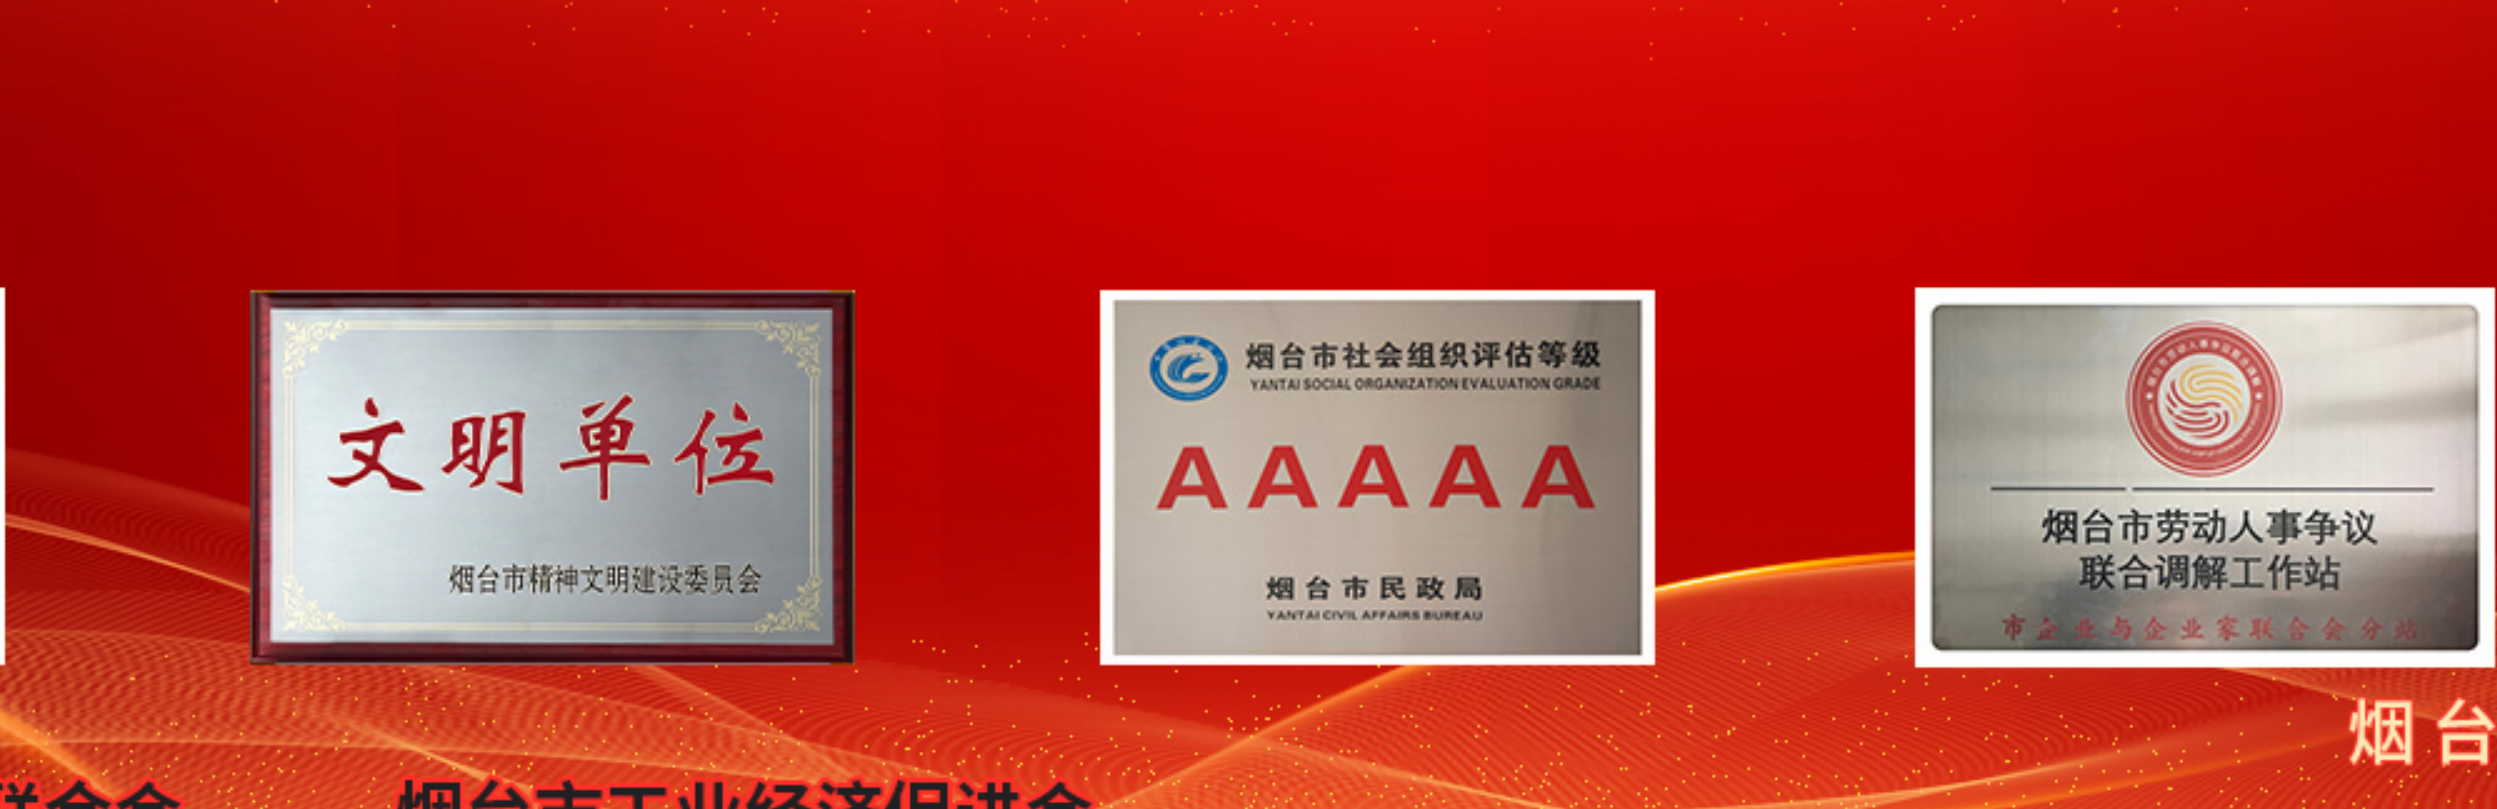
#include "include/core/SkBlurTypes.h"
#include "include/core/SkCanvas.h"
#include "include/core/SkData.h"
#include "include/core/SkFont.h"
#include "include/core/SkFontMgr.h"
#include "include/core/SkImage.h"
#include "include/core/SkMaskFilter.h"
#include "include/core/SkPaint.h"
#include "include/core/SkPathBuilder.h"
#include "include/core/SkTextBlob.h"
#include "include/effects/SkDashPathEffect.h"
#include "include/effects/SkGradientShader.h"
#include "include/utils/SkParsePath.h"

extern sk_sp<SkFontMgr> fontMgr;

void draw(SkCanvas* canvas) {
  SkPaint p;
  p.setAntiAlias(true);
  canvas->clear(SK_ColorWHITE);
  canvas->drawImageRect(SkImages::DeferredFromEncodedData(SkData::MakeFromFileName("images/1.png")), SkRect::MakeLTRB(0, 0, 2497, 809), SkSamplingOptions());
}
